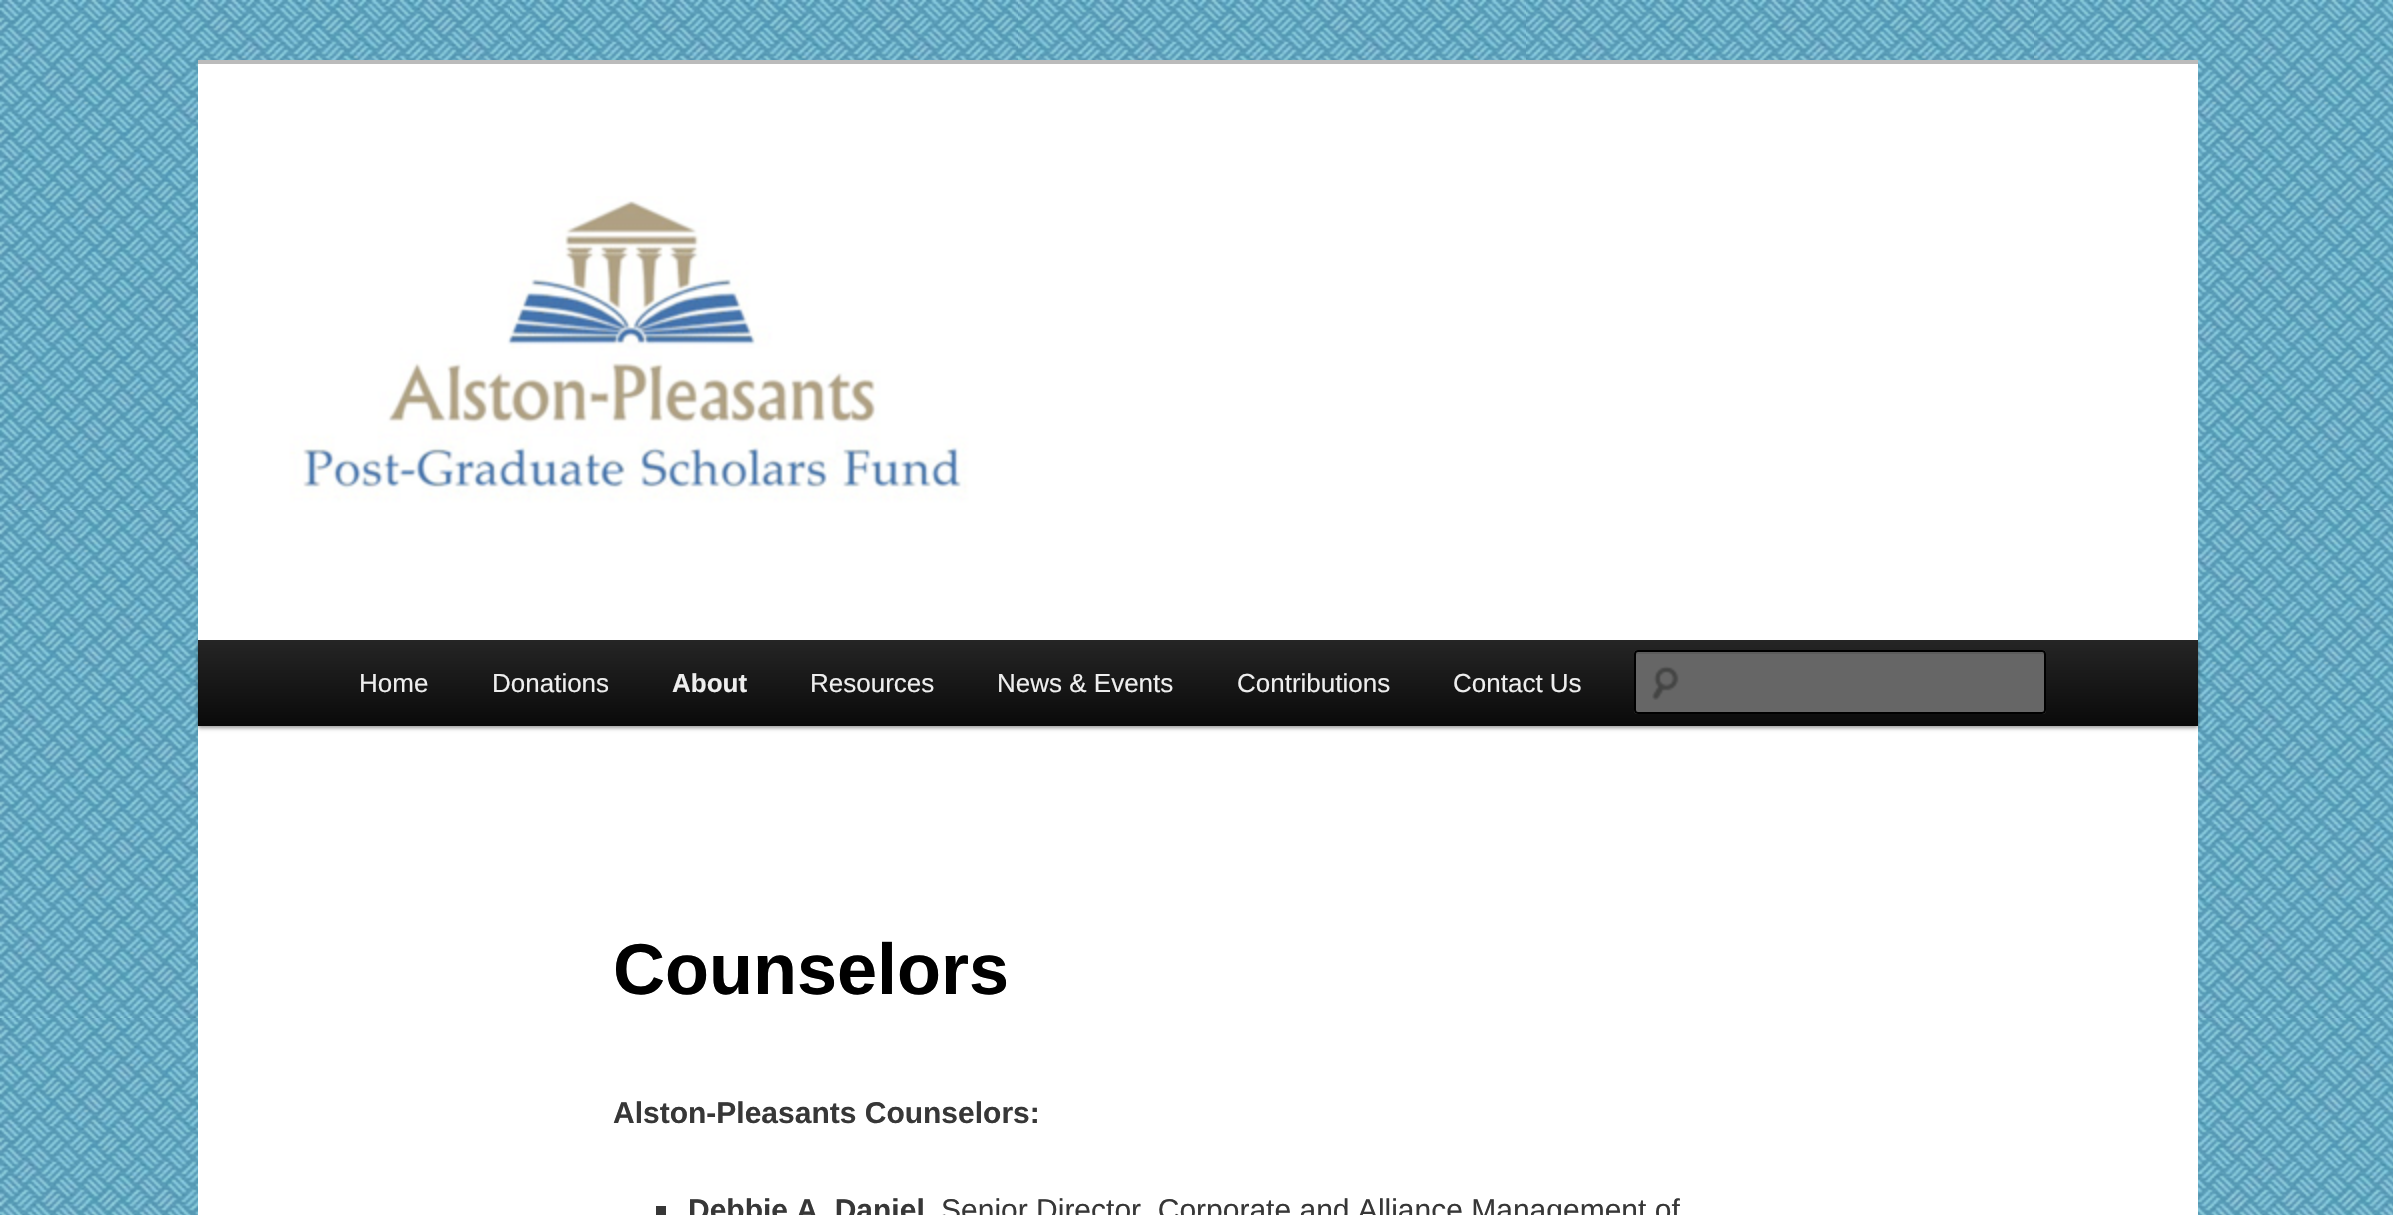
#include "include/core/SkBlurTypes.h"
#include "include/core/SkCanvas.h"
#include "include/core/SkData.h"
#include "include/core/SkFont.h"
#include "include/core/SkFontMgr.h"
#include "include/core/SkImage.h"
#include "include/core/SkMaskFilter.h"
#include "include/core/SkPaint.h"
#include "include/core/SkPathBuilder.h"
#include "include/core/SkTextBlob.h"
#include "include/effects/SkDashPathEffect.h"
#include "include/effects/SkGradientShader.h"
#include "include/utils/SkParsePath.h"

extern sk_sp<SkFontMgr> fontMgr;

void draw(SkCanvas* canvas) {
  SkPaint p;
  p.setAntiAlias(true);
  canvas->clear(SK_ColorWHITE);
  canvas->drawImageRect(SkImages::DeferredFromEncodedData(SkData::MakeFromFileName("images/1.png")), SkRect::MakeLTRB(0, 0, 2393, 1215), SkSamplingOptions());
  p.setColor(SK_ColorWHITE);
  canvas->drawRect(SkRect::MakeLTRB(198, 64, 2198, 1215), p);
  p.setColor(SkColorSetRGB(187, 187, 187));
  canvas->drawRect(SkRect::MakeLTRB(198, 60, 2198, 64), p);
  p.setColor(SkColorSetARGB(102, 0, 0, 0));
  p.setMaskFilter(SkMaskFilter::MakeBlur(kNormal_SkBlurStyle, 2));
  canvas->drawRect(SkRect::MakeLTRB(198, 642, 2198, 728), p);
  p.setMaskFilter(nullptr);
  canvas->drawImageRect(SkImages::DeferredFromEncodedData(SkData::MakeFromFileName("images/2.png")), SkRect::MakeLTRB(198, 196, 2198, 640), SkSamplingOptions());
  {
    const SkColor colors[] = {SkColorSetRGB(37, 37, 37), SkColorSetRGB(10, 10, 10)};
    const float stops[] = {0, 1};
    const SkPoint ends[] = {{1198, 640}, {1198, 726}};
    p.setShader(SkGradientShader::MakeLinear(ends, colors, stops, 2, SkTileMode::kClamp));
    p.setAlpha(255);
  }
  canvas->drawRect(SkRect::MakeLTRB(198, 640, 2198, 726), p);
  p.setShader(nullptr);
  p.setColor(SkColorSetRGB(102, 102, 102));
  canvas->drawRoundRect(SkRect::MakeLTRB(1634, 650, 2046, 714), 4, 4, p);
  canvas->drawImageRect(SkImages::DeferredFromEncodedData(SkData::MakeFromFileName("images/3.png")), SkRect::MakeLTRB(1652, 666, 1679, 700), SkSamplingOptions());
  p.setColor(SkColorSetRGB(92, 92, 92));
  canvas->drawPath(SkPathBuilder().moveTo(1638, 654).lineTo(2042, 654).cubicTo(2043, 654, 2044, 655, 2044, 656).lineTo(2044, 653).lineTo(2042, 652).lineTo(1638, 652).cubicTo(1636, 652, 1636, 654, 1636, 656).cubicTo(1636, 655, 1637, 654, 1638, 654).close().detach(), p);
  p.setStyle(SkPaint::kStroke_Style);
  p.setStrokeWidth(2);
  p.setColor(SK_ColorBLACK);
  canvas->drawRoundRect(SkRect::MakeLTRB(1635, 651, 2045, 713), 3, 3, p);
  p.setStyle(SkPaint::kFill_Style);
  p.setColor(SkColorSetRGB(55, 55, 55));
  canvas->drawRect(SkRect::MakeLTRB(656, 1206, 666, 1215), p);
  SkFont font1(fontMgr->matchFamilyStyle("Liberation Sans", SkFontStyle::Normal()), 26);
  font1.setSubpixel(true);
  p.setColor(SkColorSetRGB(238, 238, 238));
  canvas->drawString("Home", 359, 692, font1, p);
  canvas->drawString("Donations", 492, 692, font1, p);
  SkFont font2(fontMgr->matchFamilyStyle("Liberation Sans", SkFontStyle::Bold()), 26);
  font2.setSubpixel(true);
  canvas->drawString("About", 672, 692, font2, p);
  canvas->drawString("Resources", 810, 692, font1, p);
  canvas->drawString("News & Events", 997, 692, font1, p);
  canvas->drawString("Contributions", 1237, 692, font1, p);
  canvas->drawString("Contact Us", 1453, 692, font1, p);
  SkFont font3(fontMgr->matchFamilyStyle("Liberation Sans", SkFontStyle::Bold()), 72);
  font3.setSubpixel(true);
  p.setColor(SK_ColorBLACK);
  canvas->drawString("Counselors", 613, 994, font3, p);
  SkFont font4(fontMgr->matchFamilyStyle("Liberation Sans", SkFontStyle::Bold()), 30);
  font4.setSubpixel(true);
  p.setColor(SkColorSetRGB(55, 55, 55));
  canvas->drawString("Alston-Pleasants Counselors:", 613, 1123, font4, p);
  canvas->drawString("Debbie A. Daniel", 688, 1220, font4, p);
  SkFont font5(fontMgr->matchFamilyStyle("Liberation Sans", SkFontStyle::Normal()), 30);
  font5.setSubpixel(true);
  canvas->drawString("Senior Director, Corporate and Alliance Management of", 941, 1220, font5, p);
}
